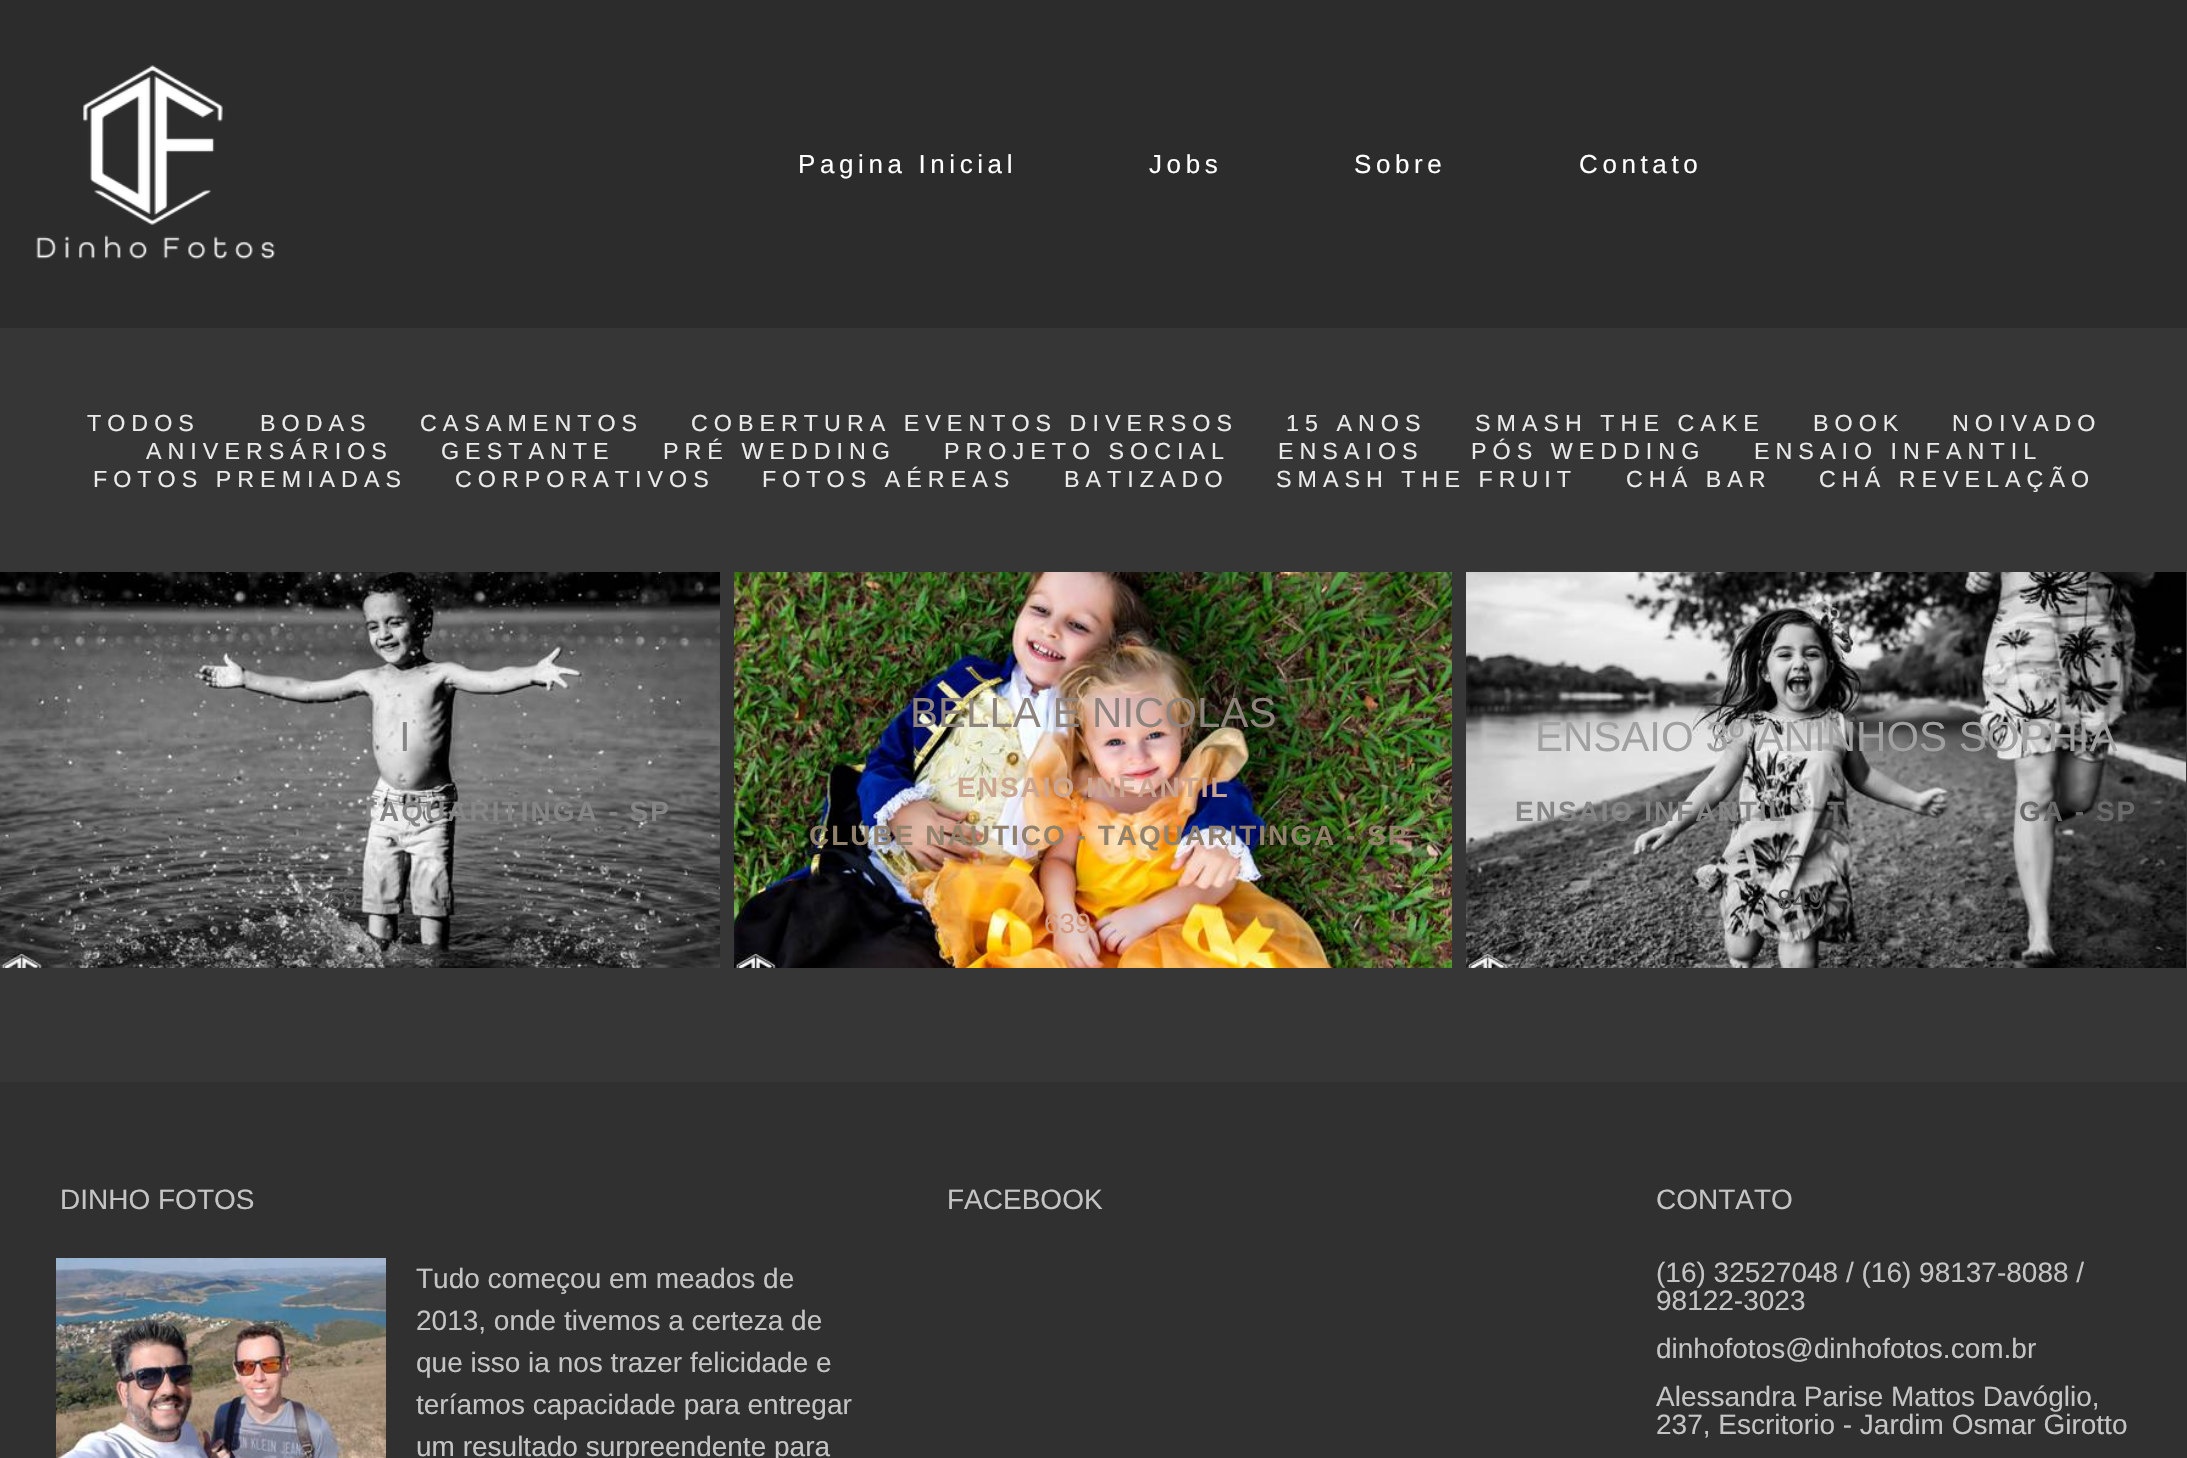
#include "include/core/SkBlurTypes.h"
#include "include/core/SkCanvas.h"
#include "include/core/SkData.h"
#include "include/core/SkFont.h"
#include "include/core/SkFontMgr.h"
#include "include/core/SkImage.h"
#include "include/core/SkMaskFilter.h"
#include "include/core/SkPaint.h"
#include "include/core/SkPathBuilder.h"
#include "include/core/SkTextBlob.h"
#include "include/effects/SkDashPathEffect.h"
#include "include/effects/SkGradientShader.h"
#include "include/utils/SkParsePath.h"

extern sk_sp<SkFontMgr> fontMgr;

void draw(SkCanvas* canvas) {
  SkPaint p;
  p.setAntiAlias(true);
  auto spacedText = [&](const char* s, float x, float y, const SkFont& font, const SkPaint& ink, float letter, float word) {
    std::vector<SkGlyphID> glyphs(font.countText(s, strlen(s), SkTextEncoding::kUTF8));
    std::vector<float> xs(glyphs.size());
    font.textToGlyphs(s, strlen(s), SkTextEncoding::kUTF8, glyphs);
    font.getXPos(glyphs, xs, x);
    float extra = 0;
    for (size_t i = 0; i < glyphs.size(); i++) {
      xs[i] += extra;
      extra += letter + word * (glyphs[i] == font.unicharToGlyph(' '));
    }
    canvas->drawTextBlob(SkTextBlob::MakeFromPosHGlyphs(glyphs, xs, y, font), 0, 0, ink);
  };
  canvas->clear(SkColorSetRGB(54, 54, 54));
  p.setColor(SkColorSetRGB(44, 44, 44));
  canvas->drawRect(SkRect::MakeLTRB(0, 0, 2187, 328), p);
  canvas->drawImageRect(SkImages::DeferredFromEncodedData(SkData::MakeFromFileName("images/1.png")), SkRect::MakeLTRB(36, 65, 275, 259), SkSamplingOptions());
  canvas->drawImageRect(SkImages::DeferredFromEncodedData(SkData::MakeFromFileName("images/2.png")), SkRect::MakeLTRB(0, 572, 720, 968), SkSamplingOptions());
  canvas->drawImageRect(SkImages::DeferredFromEncodedData(SkData::MakeFromFileName("images/3.png")), SkRect::MakeLTRB(734, 572, 1452, 968), SkSamplingOptions());
  canvas->drawImageRect(SkImages::DeferredFromEncodedData(SkData::MakeFromFileName("images/4.png")), SkRect::MakeLTRB(1466, 572, 2186, 968), SkSamplingOptions());
  p.setColor(SkColorSetRGB(48, 48, 48));
  canvas->drawRect(SkRect::MakeLTRB(0, 1082, 2187, 1458), p);
  canvas->drawImageRect(SkImages::DeferredFromEncodedData(SkData::MakeFromFileName("images/5.png")), SkRect::MakeLTRB(56, 1258, 386, 1458), SkSamplingOptions());
  SkFont font1(fontMgr->matchFamilyStyle("Liberation Sans", SkFontStyle::Normal()), 26);
  font1.setSubpixel(true);
  p.setColor(SK_ColorWHITE);
  spacedText("Pagina Inicial", 798, 173, font1, p, 4.6f, 0);
  spacedText("Jobs", 1149, 173, font1, p, 4.6f, 0);
  spacedText("Sobre", 1354, 173, font1, p, 4.6f, 0);
  spacedText("Contato", 1579, 173, font1, p, 4.6f, 0);
  SkFont font2(fontMgr->matchFamilyStyle("Liberation Sans", SkFontStyle::Normal()), 23.3f);
  font2.setSubpixel(true);
  p.setColor(SkColorSetRGB(235, 234, 234));
  spacedText("TODOS", 87, 431, font2, p, 6, 0);
  spacedText("BODAS", 260, 431, font2, p, 6, 0);
  spacedText("CASAMENTOS", 420, 431, font2, p, 6, 0);
  spacedText("COBERTURA EVENTOS DIVERSOS", 691, 431, font2, p, 6, 0);
  spacedText("15 ANOS", 1286, 431, font2, p, 6, 0);
  spacedText("SMASH THE CAKE", 1475, 431, font2, p, 6, 0);
  spacedText("BOOK", 1813, 431, font2, p, 6, 0);
  spacedText("NOIVADO", 1952, 431, font2, p, 6, 0);
  spacedText("ANIVERSÁRIOS", 146, 459, font2, p, 6, 0);
  spacedText("GESTANTE", 441, 459, font2, p, 6, 0);
  spacedText("PRÉ WEDDING", 663, 459, font2, p, 6, 0);
  spacedText("PROJETO SOCIAL", 944, 459, font2, p, 6, 0);
  spacedText("ENSAIOS", 1278, 459, font2, p, 6, 0);
  spacedText("PÓS WEDDING", 1471, 459, font2, p, 6, 0);
  spacedText("ENSAIO INFANTIL", 1754, 459, font2, p, 6, 0);
  spacedText("FOTOS PREMIADAS", 93, 487, font2, p, 6, 0);
  spacedText("CORPORATIVOS", 455, 487, font2, p, 6, 0);
  spacedText("FOTOS AÉREAS", 762, 487, font2, p, 6, 0);
  spacedText("BATIZADO", 1064, 487, font2, p, 6, 0);
  spacedText("SMASH THE FRUIT", 1276, 487, font2, p, 6, 0);
  spacedText("CHÁ BAR", 1626, 487, font2, p, 6, 0);
  spacedText("CHÁ REVELAÇÃO", 1819, 487, font2, p, 6, 0);
  SkFont font3(fontMgr->matchFamilyStyle("Liberation Sans", SkFontStyle::Normal()), 42);
  font3.setSubpixel(true);
  p.setColor(SkColorSetRGB(133, 133, 133));
  canvas->drawString("I", 399, 751, font3, p);
  SkFont font4(fontMgr->matchFamilyStyle("Liberation Sans", SkFontStyle::Bold()), 28);
  font4.setSubpixel(true);
  spacedText("TAQUARITINGA - SP", 360, 821, font4, p, 2, 0);
  SkFont font5(fontMgr->matchFamilyStyle("Liberation Sans", SkFontStyle::Normal()), 28);
  font5.setSubpixel(true);
  p.setColor(SkColorSetRGB(92, 92, 92));
  canvas->drawString("369", 311, 909, font5, p);
  p.setColor(SkColorSetRGB(142, 131, 125));
  canvas->drawString("BELLA E NICOLAS", 910, 727, font3, p);
  p.setColor(SkColorSetRGB(203, 165, 143));
  spacedText("ENSAIO INFANTIL", 957, 797, font4, p, 2, 0);
  p.setColor(SkColorSetRGB(146, 130, 108));
  spacedText("CLUBE NÁUTICO - TAQUARITINGA - SP", 809, 845, font4, p, 2, 0);
  p.setColor(SkColorSetRGB(209, 153, 128));
  canvas->drawString("639", 1044, 933, font5, p);
  p.setColor(SkColorSetRGB(160, 160, 160));
  canvas->drawString("ENSAIO 3º ANINHOS SOPHIA", 1535, 751, font3, p);
  p.setColor(SkColorSetRGB(133, 133, 133));
  spacedText("ENSAIO INFANTIL", 1515, 821, font4, p, 2, 0);
  p.setColor(SkColorSetRGB(106, 106, 106));
  spacedText("T", 1827, 821, font4, p, 2, 0);
  spacedText("GA - SP", 2019, 821, font4, p, 2, 0);
  p.setColor(SkColorSetRGB(84, 84, 84));
  canvas->drawString("849", 1777, 909, font5, p);
  p.setColor(SkColorSetRGB(196, 196, 196));
  canvas->drawString("DINHO FOTOS", 60, 1209, font5, p);
  canvas->drawString("Tudo começou em meados de", 416, 1288, font5, p);
  canvas->drawString("2013, onde tivemos a certeza de", 416, 1330, font5, p);
  canvas->drawString("que isso ia nos trazer felicidade e", 416, 1372, font5, p);
  canvas->drawString("teríamos capacidade para entregar", 416, 1414, font5, p);
  canvas->drawString("um resultado surpreendente para", 416, 1456, font5, p);
  canvas->drawString("FACEBOOK", 947, 1209, font5, p);
  canvas->drawString("CONTATO", 1656, 1209, font5, p);
  canvas->drawString("(16) 32527048 / (16) 98137-8088 /", 1656, 1282, font5, p);
  canvas->drawString("98122-3023", 1656, 1310, font5, p);
  canvas->drawString("dinhofotos@dinhofotos.com.br", 1656, 1358, font5, p);
  canvas->drawString("Alessandra Parise Mattos Davóglio,", 1656, 1406, font5, p);
  canvas->drawString("237, Escritorio - Jardim Osmar Girotto", 1656, 1434, font5, p);
}
